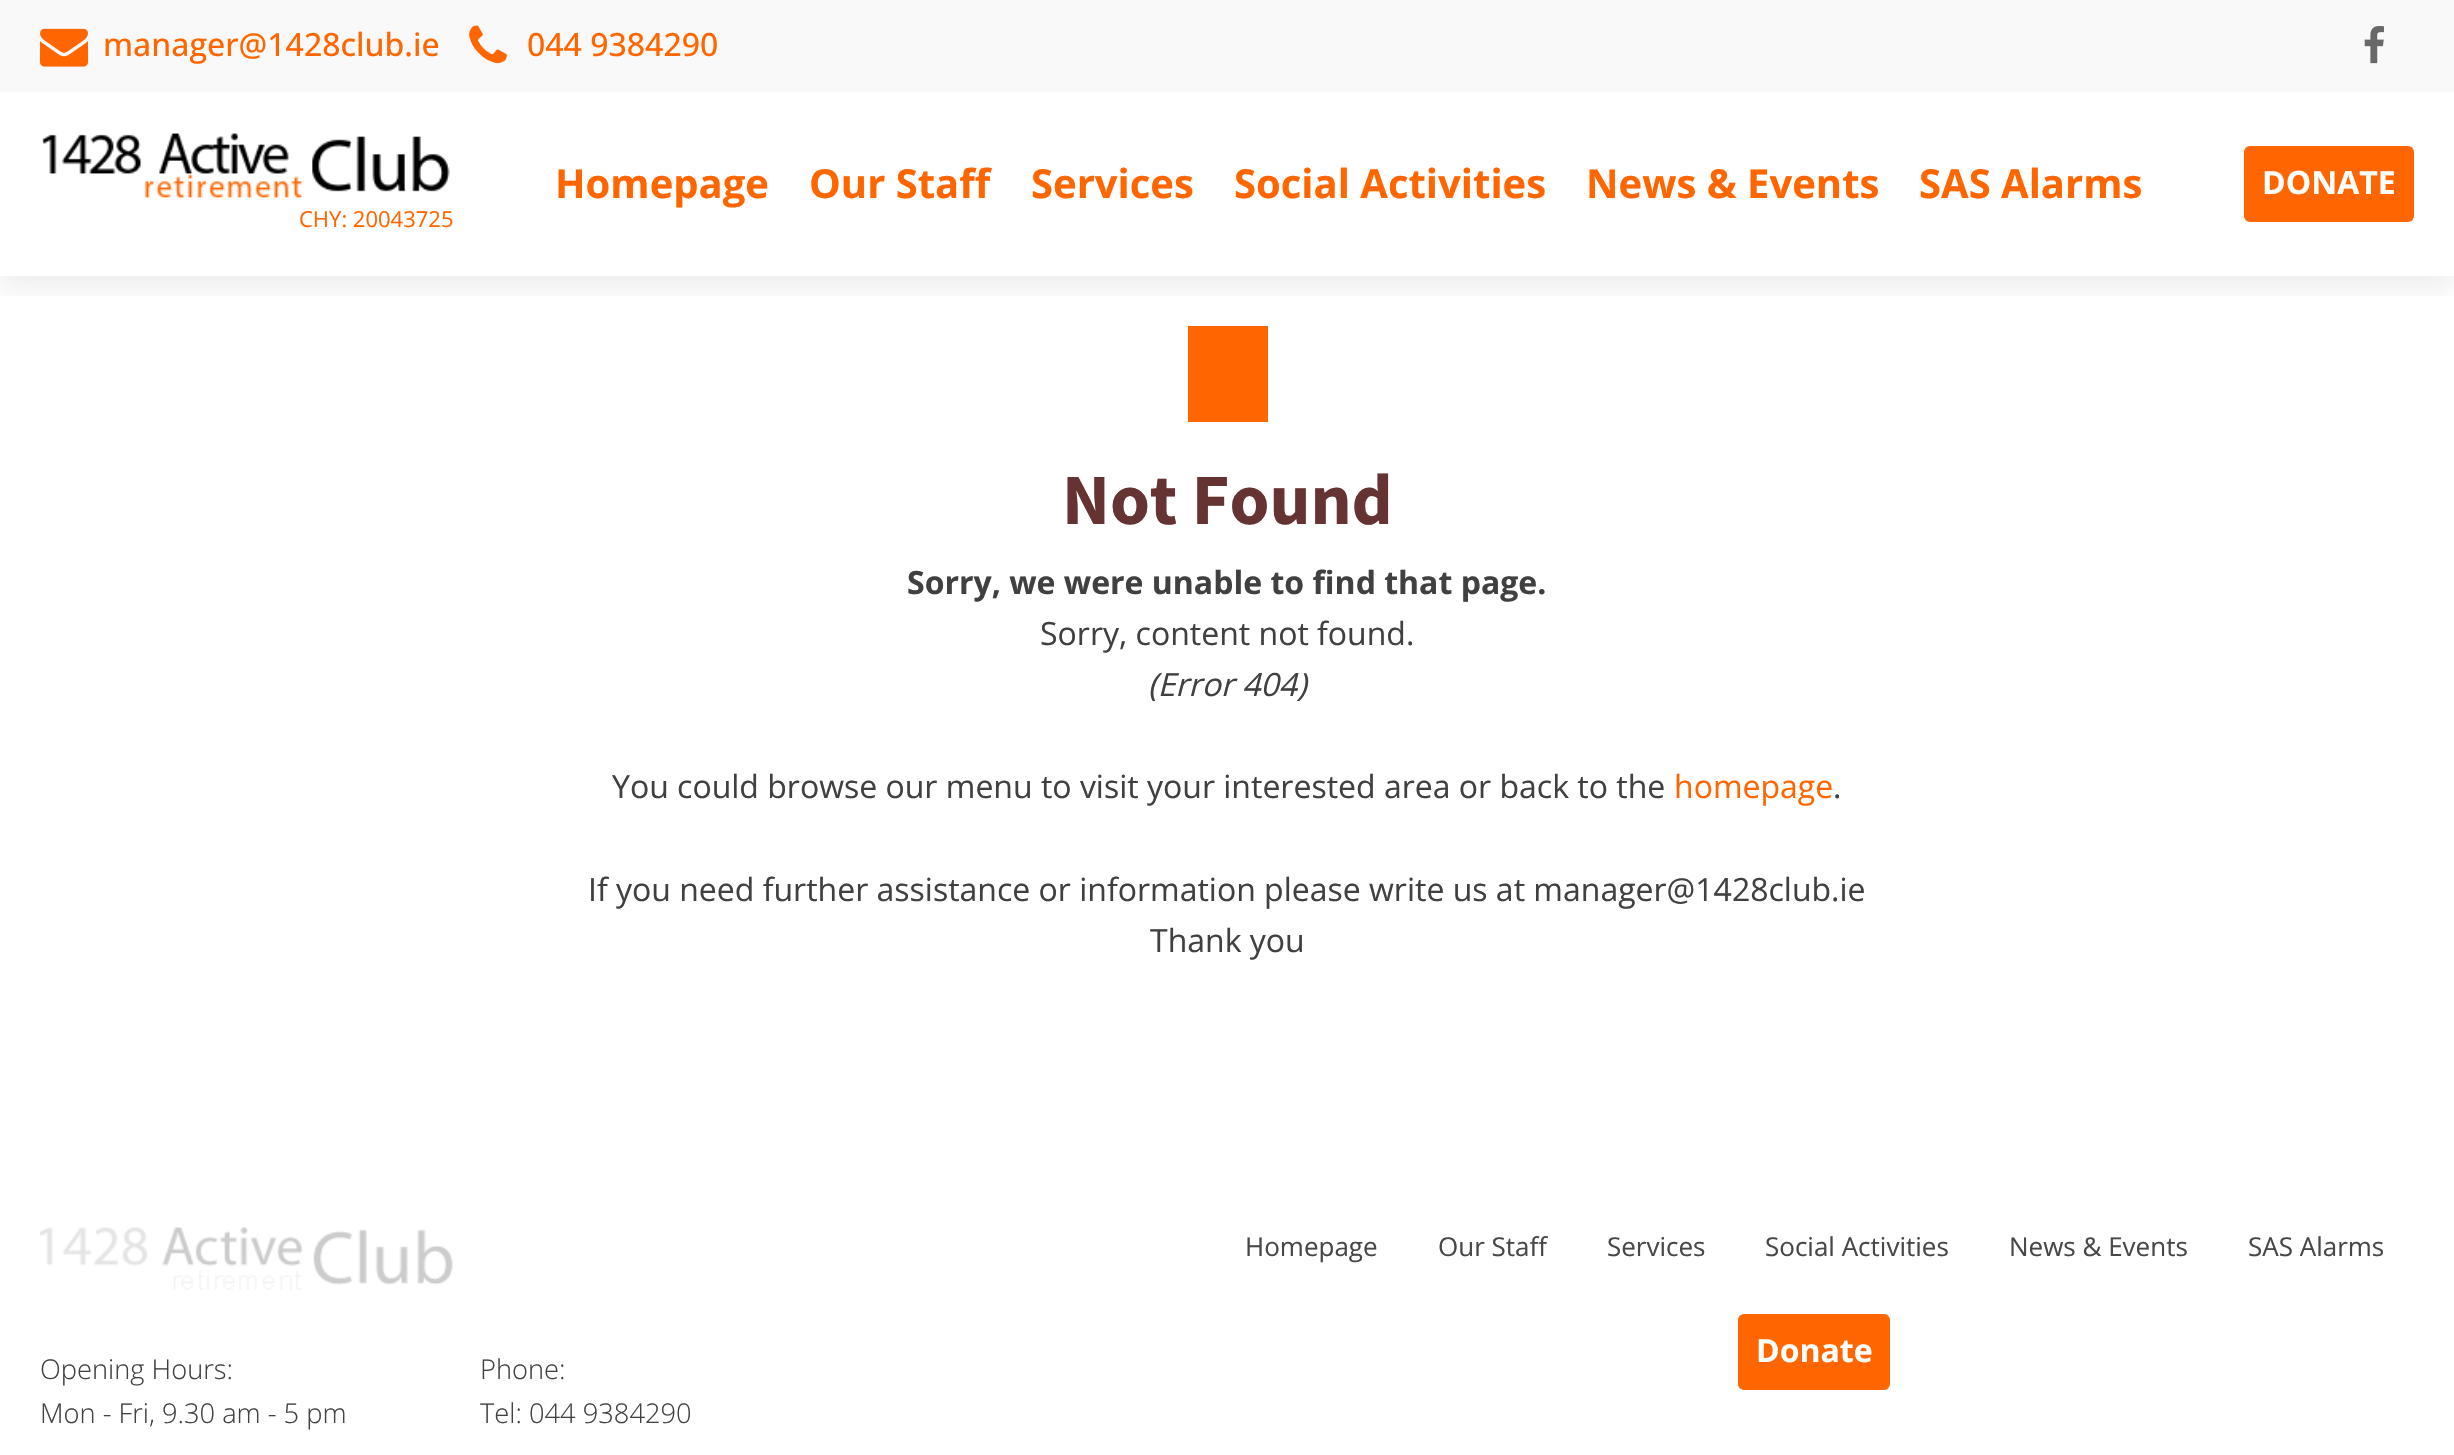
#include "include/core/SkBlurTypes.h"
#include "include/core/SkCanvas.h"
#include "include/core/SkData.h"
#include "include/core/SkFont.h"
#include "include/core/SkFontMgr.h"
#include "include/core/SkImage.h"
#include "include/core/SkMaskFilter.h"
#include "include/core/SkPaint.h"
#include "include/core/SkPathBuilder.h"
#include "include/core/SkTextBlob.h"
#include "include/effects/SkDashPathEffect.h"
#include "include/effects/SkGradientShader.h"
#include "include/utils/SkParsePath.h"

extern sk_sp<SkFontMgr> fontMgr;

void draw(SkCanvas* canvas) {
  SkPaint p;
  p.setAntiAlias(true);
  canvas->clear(SK_ColorWHITE);
  p.setColor(SkColorSetRGB(255, 102, 0));
  canvas->drawRect(SkRect::MakeLTRB(1188, 326, 1268, 422), p);
  canvas->save();
  canvas->clipRect(SkRect::MakeLTRB(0, 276, 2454, 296));
  p.setColor(SkColorSetARGB(20, 0, 0, 0));
  p.setMaskFilter(SkMaskFilter::MakeBlur(kNormal_SkBlurStyle, 15));
  canvas->drawRect(SkRect::MakeLTRB(0, 10, 2454, 286), p);
  p.setMaskFilter(nullptr);
  canvas->restore();
  p.setColor(SkColorSetRGB(249, 249, 249));
  canvas->drawRect(SkRect::MakeLTRB(0, 0, 2454, 92), p);
  canvas->drawImageRect(SkImages::DeferredFromEncodedData(SkData::MakeFromFileName("images/1.png")), SkRect::MakeLTRB(40, 28, 88, 67), SkSamplingOptions());
  canvas->drawImageRect(SkImages::DeferredFromEncodedData(SkData::MakeFromFileName("images/2.png")), SkRect::MakeLTRB(469, 25, 507, 64), SkSamplingOptions());
  canvas->drawImageRect(SkImages::DeferredFromEncodedData(SkData::MakeFromFileName("images/3.png")), SkRect::MakeLTRB(2364, 26, 2384, 64), SkSamplingOptions());
  p.setColor(SkColorSetRGB(255, 102, 0));
  canvas->drawRoundRect(SkRect::MakeLTRB(2245, 147, 2413, 221), 5, 5, p);
  p.setStyle(SkPaint::kStroke_Style);
  p.setStrokeWidth(2);
  canvas->drawRoundRect(SkRect::MakeLTRB(2245, 147, 2413, 221), 5, 5, p);
  canvas->drawImageRect(SkImages::DeferredFromEncodedData(SkData::MakeFromFileName("images/4.png")), SkRect::MakeLTRB(41, 133, 450, 198), SkSamplingOptions());
  p.setStyle(SkPaint::kFill_Style);
  canvas->drawRoundRect(SkRect::MakeLTRB(1739, 1315, 1889, 1389), 5, 5, p);
  p.setStyle(SkPaint::kStroke_Style);
  canvas->drawRoundRect(SkRect::MakeLTRB(1739, 1315, 1889, 1389), 5, 5, p);
  canvas->drawImageRect(SkImages::DeferredFromEncodedData(SkData::MakeFromFileName("images/5.png")), SkRect::MakeLTRB(40, 1227, 453, 1290), SkSamplingOptions());
  SkFont font1(fontMgr->matchFamilyStyle("Open Sans", SkFontStyle(500, SkFontStyle::kNormal_Width, SkFontStyle::kUpright_Slant)), 32);
  font1.setSubpixel(true);
  p.setStyle(SkPaint::kFill_Style);
  canvas->drawString("manager@1428club.ie", 103, 56, font1, p);
  canvas->drawString("044 9384290", 527, 56, font1, p);
  SkFont font2(fontMgr->matchFamilyStyle("Open Sans", SkFontStyle::Bold()), 40);
  font2.setSubpixel(true);
  canvas->drawString("Homepage", 555, 198, font2, p);
  canvas->drawString("Our Staff", 809, 198, font2, p);
  canvas->drawString("Services", 1031, 198, font2, p);
  canvas->drawString("Social Activities", 1234, 198, font2, p);
  canvas->drawString("News & Events", 1586, 198, font2, p);
  canvas->drawString("SAS Alarms", 1919, 198, font2, p);
  SkFont font3(fontMgr->matchFamilyStyle("Open Sans", SkFontStyle::Bold()), 32);
  font3.setSubpixel(true);
  p.setColor(SK_ColorWHITE);
  canvas->drawString("DONATE", 2262, 194, font3, p);
  SkFont font4(fontMgr->matchFamilyStyle("Open Sans", SkFontStyle::Normal()), 22);
  font4.setSubpixel(true);
  p.setColor(SkColorSetRGB(255, 102, 0));
  canvas->drawString("CHY: 20043725", 299, 227, font4, p);
  SkFont font5(fontMgr->matchFamilyStyle("Source Sans Pro", SkFontStyle::Bold()), 72);
  font5.setSubpixel(true);
  p.setColor(SkColorSetRGB(102, 51, 51));
  canvas->drawString("Not Found", 1062, 524, font5, p);
  p.setColor(SkColorSetRGB(64, 64, 64));
  canvas->drawString("Sorry, we were unable to find that page.", 907, 594, font3, p);
  SkFont font6(fontMgr->matchFamilyStyle("Open Sans", SkFontStyle::Normal()), 32);
  font6.setSubpixel(true);
  canvas->drawString("Sorry, content not found.", 1040, 645, font6, p);
  SkFont font7(fontMgr->matchFamilyStyle("Open Sans", SkFontStyle::Italic()), 32);
  font7.setSubpixel(true);
  canvas->drawString("(Error 404)", 1148, 696, font7, p);
  canvas->drawString("You could browse our menu to visit your interested area or back to the", 612, 798, font6, p);
  p.setColor(SkColorSetRGB(255, 102, 0));
  canvas->drawString("homepage", 1674, 798, font6, p);
  p.setColor(SkColorSetRGB(64, 64, 64));
  canvas->drawString(".", 1833, 798, font6, p);
  canvas->drawString("If you need further assistance or information please write us at manager@1428club.ie", 588, 901, font6, p);
  canvas->drawString("Thank you", 1150, 952, font6, p);
  SkFont font8(fontMgr->matchFamilyStyle("Open Sans", SkFontStyle::Normal()), 26);
  font8.setSubpixel(true);
  p.setColor(SkColorSetRGB(71, 71, 71));
  canvas->drawString("Homepage", 1245, 1256, font8, p);
  canvas->drawString("Our Staff", 1438, 1256, font8, p);
  canvas->drawString("Services", 1607, 1256, font8, p);
  canvas->drawString("Social Activities", 1765, 1256, font8, p);
  canvas->drawString("News & Events", 2009, 1256, font8, p);
  canvas->drawString("SAS Alarms", 2248, 1256, font8, p);
  p.setColor(SK_ColorWHITE);
  canvas->drawString("Donate", 1756, 1362, font3, p);
  SkFont font9(fontMgr->matchFamilyStyle("Open Sans", SkFontStyle(300, SkFontStyle::kNormal_Width, SkFontStyle::kUpright_Slant)), 27.25f);
  font9.setSubpixel(true);
  p.setColor(SkColorSetRGB(64, 64, 64));
  canvas->drawString("Opening Hours:", 40, 1379, font9, p);
  canvas->drawString("Mon - Fri, 9.30 am - 5 pm", 40, 1423, font9, p);
  canvas->drawString("Phone:", 480, 1379, font9, p);
  canvas->drawString("Tel: 044 9384290", 480, 1423, font9, p);
}
